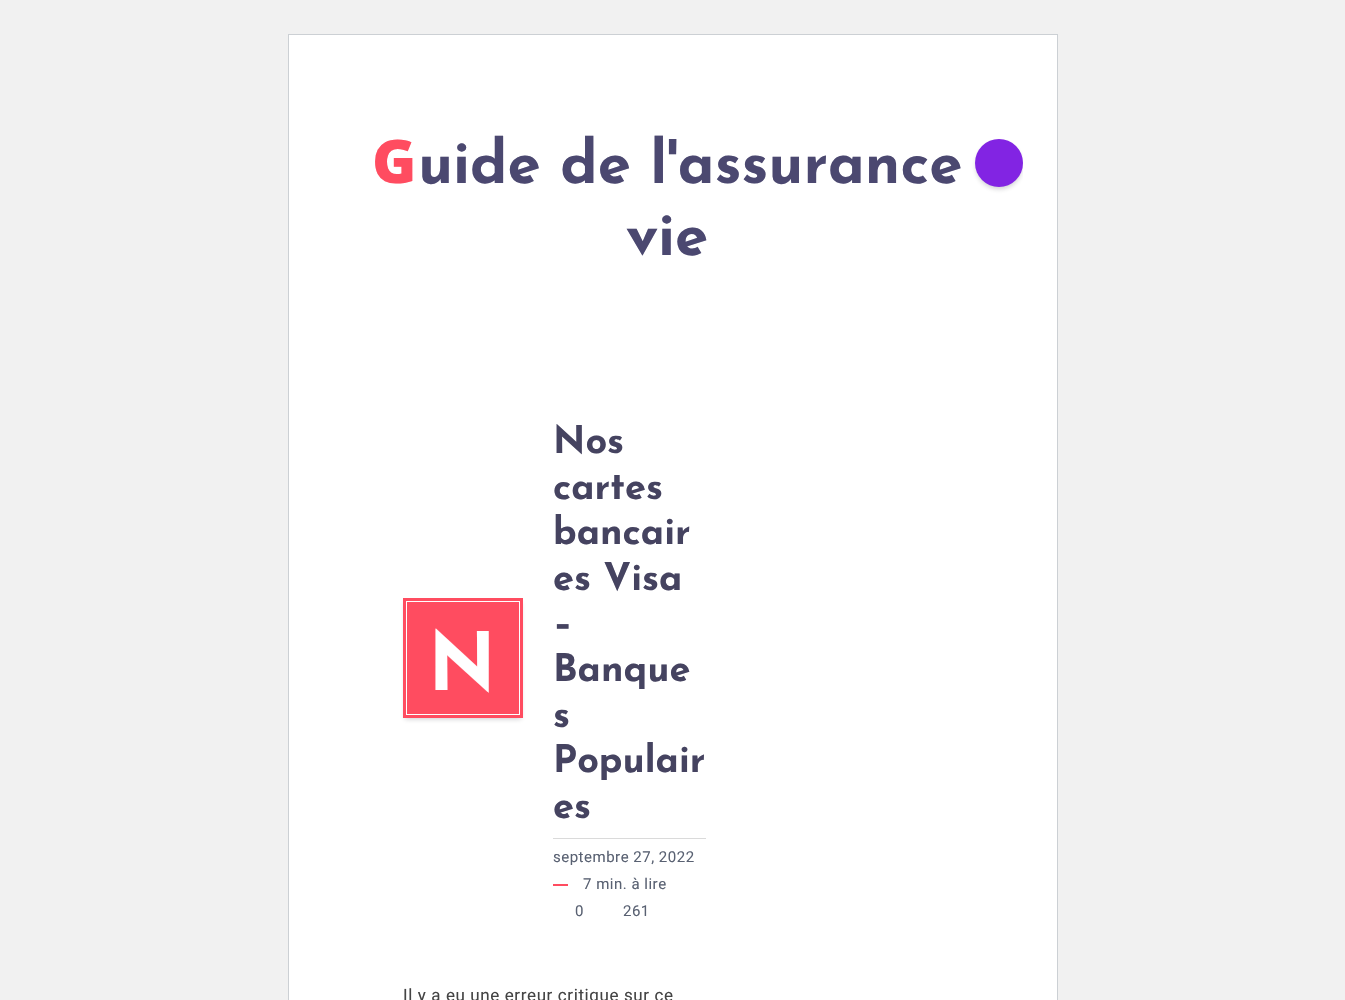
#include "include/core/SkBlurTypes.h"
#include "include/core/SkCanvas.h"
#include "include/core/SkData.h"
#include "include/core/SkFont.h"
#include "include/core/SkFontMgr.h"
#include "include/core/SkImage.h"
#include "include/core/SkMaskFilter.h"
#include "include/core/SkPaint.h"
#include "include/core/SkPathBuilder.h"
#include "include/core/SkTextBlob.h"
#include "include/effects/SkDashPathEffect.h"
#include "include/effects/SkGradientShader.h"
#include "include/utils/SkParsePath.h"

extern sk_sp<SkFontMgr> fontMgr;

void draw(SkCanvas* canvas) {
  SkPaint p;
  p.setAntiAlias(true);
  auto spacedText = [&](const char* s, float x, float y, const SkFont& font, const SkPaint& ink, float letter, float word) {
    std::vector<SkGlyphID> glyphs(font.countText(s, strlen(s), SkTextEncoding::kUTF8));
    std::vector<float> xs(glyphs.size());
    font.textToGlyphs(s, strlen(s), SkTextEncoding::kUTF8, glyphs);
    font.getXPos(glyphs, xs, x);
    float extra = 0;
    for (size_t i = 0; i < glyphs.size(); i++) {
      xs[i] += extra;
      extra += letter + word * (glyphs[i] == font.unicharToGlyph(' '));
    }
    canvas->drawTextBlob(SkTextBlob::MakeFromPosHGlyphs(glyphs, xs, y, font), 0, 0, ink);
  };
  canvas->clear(SkColorSetRGB(241, 241, 241));
  p.setColor(SK_ColorWHITE);
  canvas->drawRect(SkRect::MakeLTRB(288.5f, 34.5f, 1057.5f, 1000.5f), p);
  p.setStyle(SkPaint::kStroke_Style);
  p.setStrokeWidth(1);
  p.setColor(SkColorSetRGB(204, 208, 212));
  canvas->drawRect(SkRect::MakeLTRB(288.5f, 34.5f, 1057.5f, 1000.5f), p);
  canvas->save();
  canvas->clipRect(SkRect::MakeLTRB(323, 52, 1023, 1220));
  p.setStyle(SkPaint::kFill_Style);
  p.setColor(SkColorSetARGB(51, 7, 10, 25));
  p.setMaskFilter(SkMaskFilter::MakeBlur(kNormal_SkBlurStyle, 2.5f));
  canvas->drawRoundRect(SkRect::MakeLTRB(976, 143, 1022, 189), 23, 23, p);
  p.setMaskFilter(nullptr);
  canvas->restore();
  p.setColor(SkColorSetRGB(130, 36, 227));
  canvas->drawCircle(999, 163, 24, p);
  p.setColor(SkColorSetARGB(51, 7, 10, 25));
  p.setMaskFilter(SkMaskFilter::MakeBlur(kNormal_SkBlurStyle, 2.5f));
  canvas->drawRect(SkRect::MakeLTRB(405, 603, 521, 719), p);
  p.setMaskFilter(nullptr);
  p.setColor(SkColorSetRGB(255, 76, 96));
  canvas->drawRect(SkRect::MakeLTRB(403, 598, 523, 718), p);
  p.setStyle(SkPaint::kStroke_Style);
  p.setColor(SK_ColorWHITE);
  canvas->drawRect(SkRect::MakeLTRB(406.5f, 601.5f, 519.5f, 714.5f), p);
  p.setStyle(SkPaint::kFill_Style);
  p.setColor(SkColorSetRGB(218, 218, 218));
  canvas->drawRect(SkRect::MakeLTRB(553, 838, 706, 839), p);
  p.setColor(SkColorSetRGB(255, 76, 96));
  canvas->drawRect(SkRect::MakeLTRB(553, 884, 568, 886), p);
  SkFont font1(fontMgr->matchFamilyStyle("Noto Sans", SkFontStyle(900, SkFontStyle::kNormal_Width, SkFontStyle::kUpright_Slant)), 60);
  font1.setSubpixel(true);
  canvas->drawString("G", 372, 183, font1, p);
  SkFont font2(fontMgr->matchFamilyStyle("Josefin Sans", SkFontStyle::Bold()), 60);
  font2.setSubpixel(true);
  p.setColor(SkColorSetRGB(75, 72, 112));
  canvas->drawString("uide de l'assurance", 418, 183, font2, p);
  canvas->drawString("vie", 626, 255, font2, p);
  SkFont font3(fontMgr->matchFamilyStyle("Josefin Sans", SkFontStyle::Bold()), 80);
  font3.setSubpixel(true);
  p.setColor(SK_ColorWHITE);
  spacedText("N", 428, 690, font3, p, 0.5f, 0);
  SkFont font4(fontMgr->matchFamilyStyle("Josefin Sans", SkFontStyle::Bold()), 38);
  font4.setSubpixel(true);
  p.setColor(SkColorSetRGB(69, 67, 96));
  canvas->drawString("Nos", 553, 453, font4, p);
  canvas->drawString("cartes", 553, 499, font4, p);
  canvas->drawString("bancair", 553, 544, font4, p);
  canvas->drawString("es Visa", 553, 590, font4, p);
  canvas->drawString("–", 553, 635, font4, p);
  canvas->drawString("Banque", 553, 681, font4, p);
  canvas->drawString("s", 553, 727, font4, p);
  canvas->drawString("Populair", 553, 772, font4, p);
  canvas->drawString("es", 553, 818, font4, p);
  SkFont font5(fontMgr->matchFamilyStyle("Roboto", SkFontStyle::Normal()), 15);
  font5.setSubpixel(true);
  p.setColor(SkColorSetRGB(89, 97, 114));
  spacedText("septembre 27, 2022", 553, 862, font5, p, 0.5f, 0);
  spacedText("7 min. à lire", 583, 889, font5, p, 0.5f, 0);
  spacedText("0", 575, 916, font5, p, 0.5f, 0);
  spacedText("261", 623, 916, font5, p, 0.5f, 0);
  SkFont font6(fontMgr->matchFamilyStyle("Roboto", SkFontStyle::Normal()), 17);
  font6.setSubpixel(true);
  p.setColor(SkColorSetRGB(68, 68, 68));
  spacedText("Il y a eu une erreur critique sur ce", 403, 1001, font6, p, 0.6f, 0);
}
